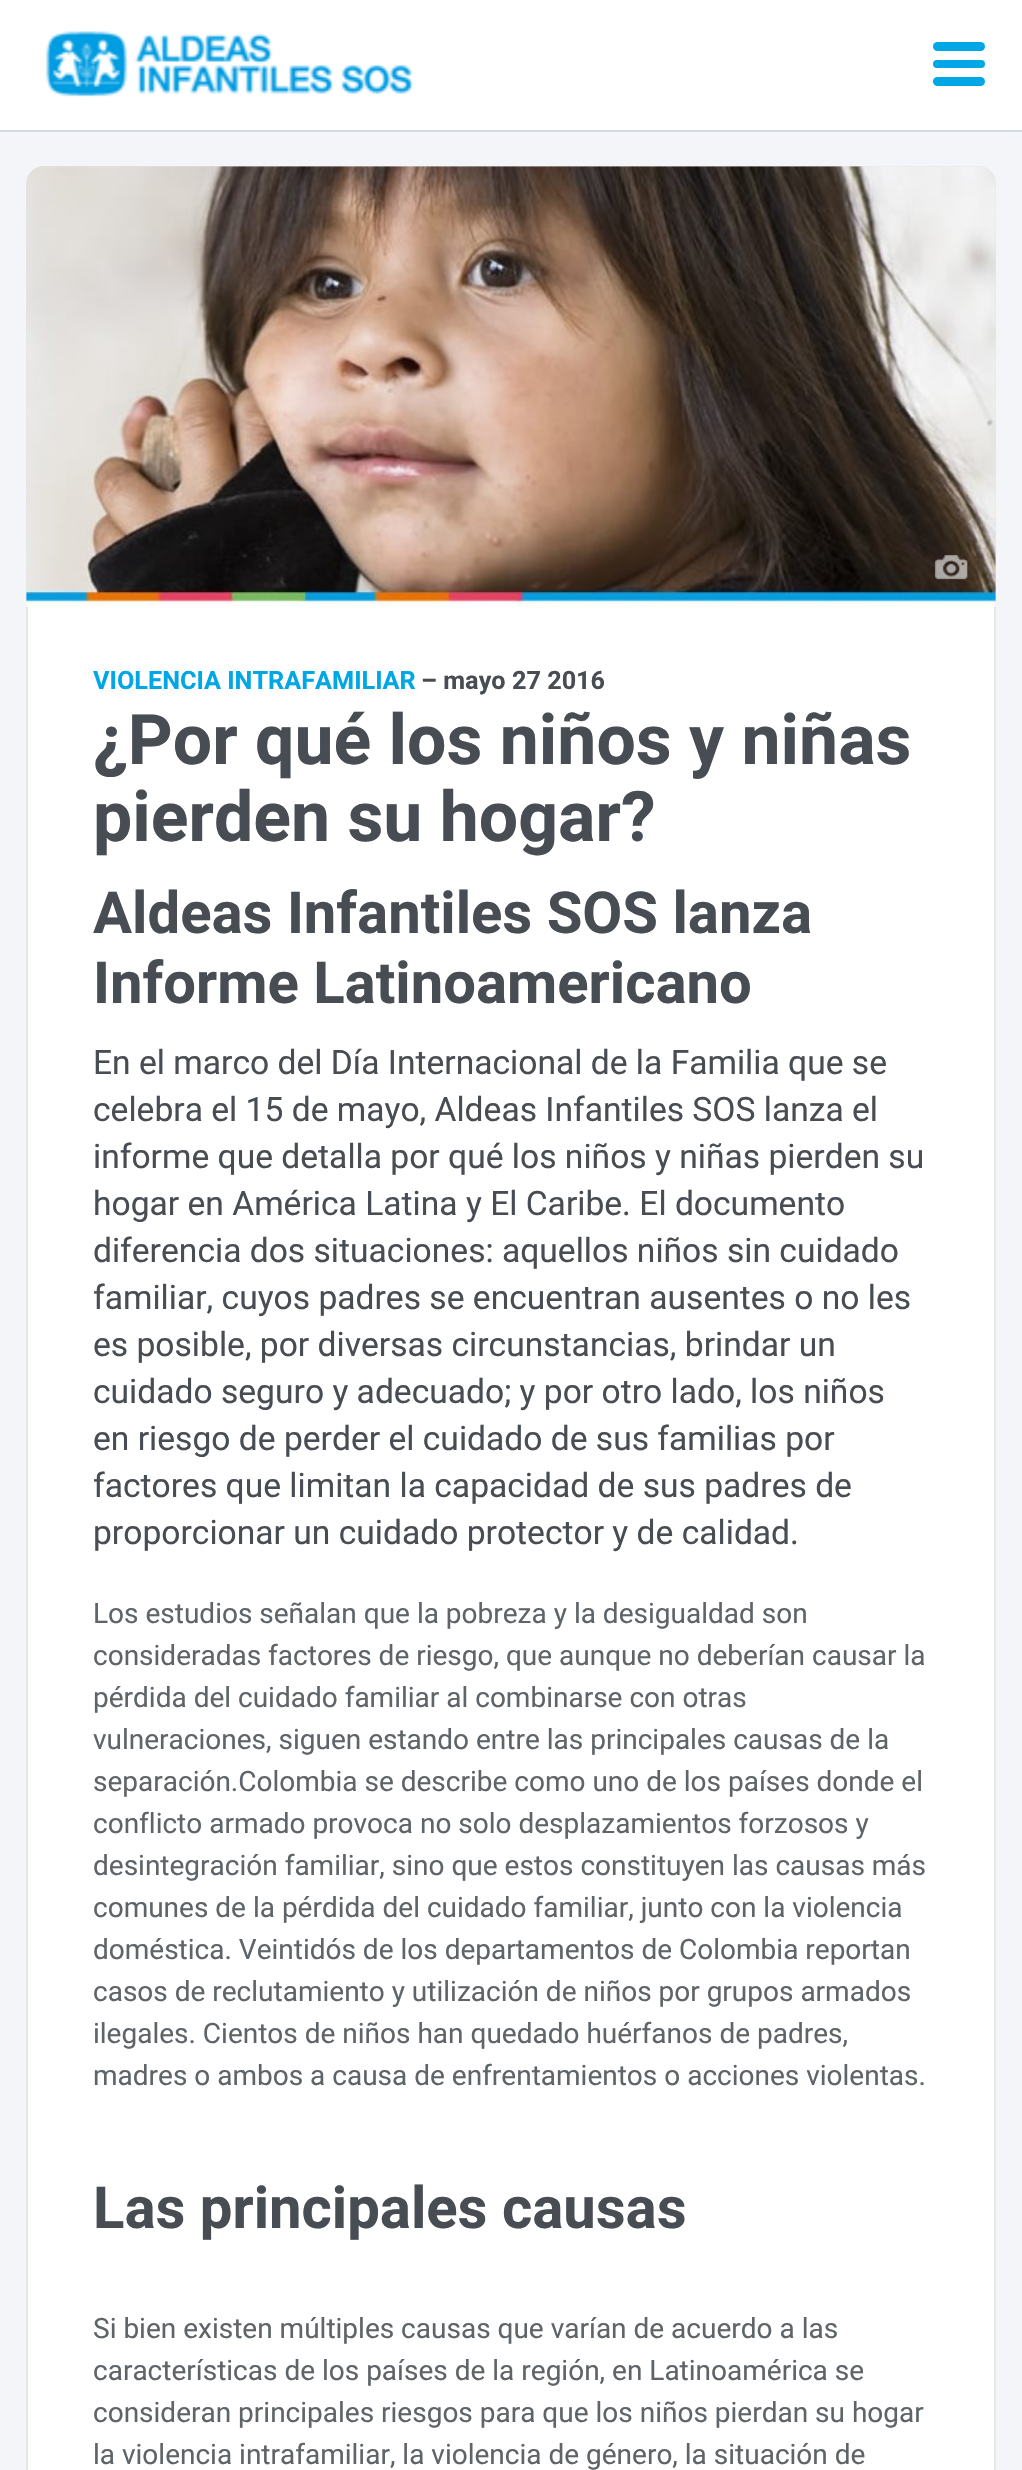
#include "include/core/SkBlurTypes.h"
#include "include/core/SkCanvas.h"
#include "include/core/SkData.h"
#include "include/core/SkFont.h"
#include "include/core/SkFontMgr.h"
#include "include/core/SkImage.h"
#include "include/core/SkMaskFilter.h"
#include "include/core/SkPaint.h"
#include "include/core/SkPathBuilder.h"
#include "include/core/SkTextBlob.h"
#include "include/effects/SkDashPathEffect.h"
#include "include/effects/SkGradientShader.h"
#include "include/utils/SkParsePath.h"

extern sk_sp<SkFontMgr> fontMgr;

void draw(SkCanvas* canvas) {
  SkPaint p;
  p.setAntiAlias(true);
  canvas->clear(SK_ColorWHITE);
  p.setColor(SkColorSetRGB(211, 218, 229));
  canvas->drawRect(SkRect::MakeLTRB(0, 130, 1022, 132), p);
  canvas->drawImageRect(SkImages::DeferredFromEncodedData(SkData::MakeFromFileName("images/1.png")), SkRect::MakeLTRB(45, 31, 414, 97), SkSamplingOptions());
  p.setColor(SkColorSetRGB(0, 167, 228));
  canvas->drawRoundRect(SkRect::MakeLTRB(933, 42, 985, 51), 4.5f, 4.5f, p);
  canvas->drawRoundRect(SkRect::MakeLTRB(933, 60, 985, 68), 4, 4, p);
  canvas->drawRoundRect(SkRect::MakeLTRB(933, 77, 985, 86), 4.5f, 4.5f, p);
  p.setColor(SkColorSetRGB(243, 245, 248));
  canvas->drawRect(SkRect::MakeLTRB(0, 132, 1022, 2470), p);
  p.setColor(SK_ColorWHITE);
  canvas->drawPath(SkPathBuilder().moveTo(44, 168).lineTo(978, 168).cubicTo(987, 168, 994, 175, 994, 184).lineTo(994, 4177).cubicTo(994, 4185, 987, 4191, 978, 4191).lineTo(44, 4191).cubicTo(35, 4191, 28, 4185, 28, 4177).lineTo(28, 184).cubicTo(28, 175, 35, 168, 44, 168).close().detach(), p);
  p.setStyle(SkPaint::kStroke_Style);
  p.setStrokeWidth(2);
  p.setColor(SkColorSetRGB(230, 230, 230));
  canvas->drawRoundRect(SkRect::MakeLTRB(27, 167, 995, 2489), 17, 17, p);
  canvas->drawImageRect(SkImages::DeferredFromEncodedData(SkData::MakeFromFileName("images/2.png")), SkRect::MakeLTRB(26, 166, 996, 607), SkSamplingOptions());
  canvas->drawImageRect(SkImages::DeferredFromEncodedData(SkData::MakeFromFileName("images/3.png")), SkRect::MakeLTRB(934, 554, 968, 580), SkSamplingOptions());
  SkFont font1(fontMgr->matchFamilyStyle("Roboto", SkFontStyle::Bold()), 25.25f);
  font1.setSubpixel(true);
  p.setStyle(SkPaint::kFill_Style);
  p.setColor(SkColorSetRGB(0, 167, 228));
  canvas->drawString("VIOLENCIA INTRAFAMILIAR", 93, 689, font1, p);
  p.setColor(SkColorSetRGB(72, 77, 83));
  canvas->drawString("– mayo 27 2016", 421, 689, font1, p);
  SkFont font2(fontMgr->matchFamilyStyle("Roboto", SkFontStyle::Bold()), 69.75f);
  font2.setSubpixel(true);
  canvas->drawString("¿Por qué los niños y niñas", 93, 764, font2, p);
  canvas->drawString("pierden su hogar?", 93, 841, font2, p);
  SkFont font3(fontMgr->matchFamilyStyle("Roboto", SkFontStyle::Bold()), 58);
  font3.setSubpixel(true);
  canvas->drawString("Aldeas Infantiles SOS lanza", 93, 933, font3, p);
  canvas->drawString("Informe Latinoamericano", 93, 1003, font3, p);
  SkFont font4(fontMgr->matchFamilyStyle("Roboto", SkFontStyle::Normal()), 33.6f);
  font4.setSubpixel(true);
  canvas->drawString("En el marco del Día Internacional de la Familia que se", 93, 1074, font4, p);
  canvas->drawString("celebra el 15 de mayo, Aldeas Infantiles SOS lanza el", 93, 1121, font4, p);
  canvas->drawString("informe que detalla por qué los niños y niñas pierden su", 93, 1168, font4, p);
  canvas->drawString("hogar en América Latina y El Caribe. El documento", 93, 1215, font4, p);
  canvas->drawString("diferencia dos situaciones: aquellos niños sin cuidado", 93, 1262, font4, p);
  canvas->drawString("familiar, cuyos padres se encuentran ausentes o no les", 93, 1309, font4, p);
  canvas->drawString("es posible, por diversas circunstancias, brindar un", 93, 1356, font4, p);
  canvas->drawString("cuidado seguro y adecuado; y por otro lado, los niños", 93, 1403, font4, p);
  canvas->drawString("en riesgo de perder el cuidado de sus familias por", 93, 1450, font4, p);
  canvas->drawString("factores que limitan la capacidad de sus padres de", 93, 1497, font4, p);
  canvas->drawString("proporcionar un cuidado protector y de calidad.", 93, 1544, font4, p);
  SkFont font5(fontMgr->matchFamilyStyle("Roboto", SkFontStyle::Normal()), 28);
  font5.setSubpixel(true);
  p.setColor(SkColorSetRGB(94, 100, 104));
  canvas->drawString("Los estudios señalan que la pobreza y la desigualdad son", 93, 1623, font5, p);
  canvas->drawString("consideradas factores de riesgo, que aunque no deberían causar la", 93, 1665, font5, p);
  canvas->drawString("pérdida del cuidado familiar al combinarse con otras", 93, 1707, font5, p);
  canvas->drawString("vulneraciones, siguen estando entre las principales causas de la", 93, 1749, font5, p);
  canvas->drawString("separación.Colombia se describe como uno de los países donde el", 93, 1791, font5, p);
  canvas->drawString("conflicto armado provoca no solo desplazamientos forzosos y", 93, 1833, font5, p);
  canvas->drawString("desintegración familiar, sino que estos constituyen las causas más", 93, 1875, font5, p);
  canvas->drawString("comunes de la pérdida del cuidado familiar, junto con la violencia", 93, 1917, font5, p);
  canvas->drawString("doméstica. Veintidós de los departamentos de Colombia reportan", 93, 1959, font5, p);
  canvas->drawString("casos de reclutamiento y utilización de niños por grupos armados", 93, 2001, font5, p);
  canvas->drawString("ilegales. Cientos de niños han quedado huérfanos de padres,", 93, 2043, font5, p);
  canvas->drawString("madres o ambos a causa de enfrentamientos o acciones violentas.", 93, 2085, font5, p);
  p.setColor(SkColorSetRGB(72, 77, 83));
  canvas->drawString("Las principales causas", 93, 2228, font3, p);
  p.setColor(SkColorSetRGB(94, 100, 104));
  canvas->drawString("Si bien existen múltiples causas que varían de acuerdo a las", 93, 2338, font5, p);
  canvas->drawString("características de los países de la región, en Latinoamérica se", 93, 2380, font5, p);
  canvas->drawString("consideran principales riesgos para que los niños pierdan su hogar", 93, 2422, font5, p);
  canvas->drawString("la violencia intrafamiliar, la violencia de género, la situación de", 93, 2464, font5, p);
}
